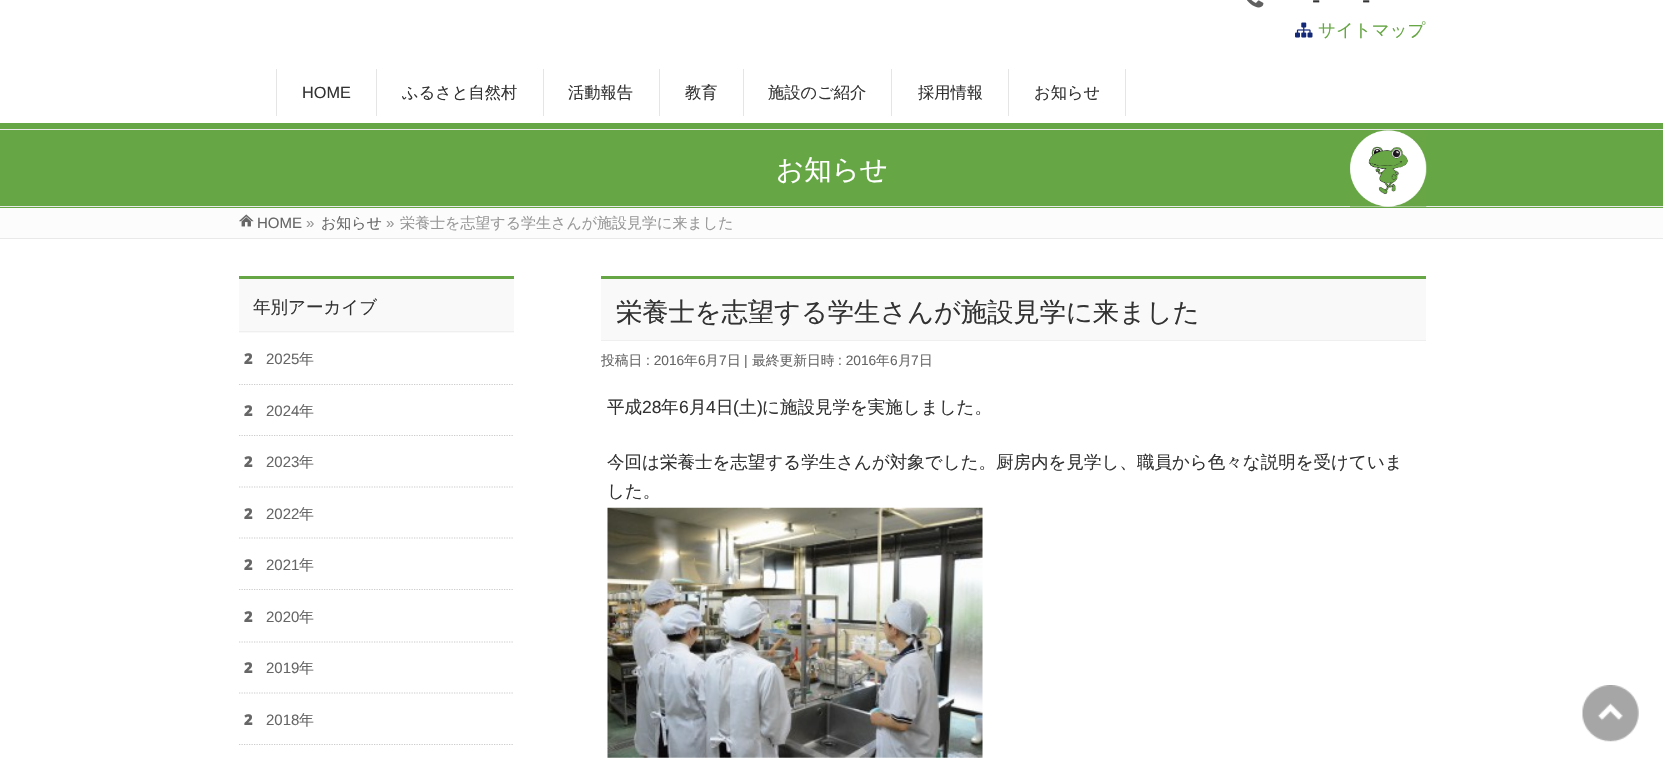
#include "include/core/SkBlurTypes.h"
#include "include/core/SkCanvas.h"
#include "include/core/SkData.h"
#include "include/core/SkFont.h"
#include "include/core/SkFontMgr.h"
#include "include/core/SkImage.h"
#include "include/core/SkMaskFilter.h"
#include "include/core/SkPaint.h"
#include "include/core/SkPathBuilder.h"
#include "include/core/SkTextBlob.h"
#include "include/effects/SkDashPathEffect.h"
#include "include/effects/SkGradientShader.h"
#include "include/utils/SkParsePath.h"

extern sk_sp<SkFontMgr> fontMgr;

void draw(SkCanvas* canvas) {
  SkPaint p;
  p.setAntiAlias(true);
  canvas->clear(SK_ColorWHITE);
  p.setColor(SkColorSetRGB(102, 166, 68));
  canvas->drawRect(SkRect::MakeLTRB(0, 123, 1663, 129), p);
  canvas->drawImageRect(SkImages::DeferredFromEncodedData(SkData::MakeFromFileName("images/1.png")), SkRect::MakeLTRB(1247, 0, 1264, 8), SkSamplingOptions());
  canvas->drawImageRect(SkImages::DeferredFromEncodedData(SkData::MakeFromFileName("images/2.png")), SkRect::MakeLTRB(1295, 22, 1313, 38), SkSamplingOptions());
  p.setColor(SkColorSetRGB(229, 229, 229));
  canvas->drawRect(SkRect::MakeLTRB(376, 69, 377, 116), p);
  canvas->drawRect(SkRect::MakeLTRB(276, 69, 277, 116), p);
  canvas->drawRect(SkRect::MakeLTRB(543, 69, 544, 116), p);
  canvas->drawRect(SkRect::MakeLTRB(659, 69, 660, 116), p);
  canvas->drawRect(SkRect::MakeLTRB(743, 69, 744, 116), p);
  canvas->drawRect(SkRect::MakeLTRB(891, 69, 892, 116), p);
  canvas->drawRect(SkRect::MakeLTRB(1008, 69, 1009, 116), p);
  canvas->drawRect(SkRect::MakeLTRB(1125, 69, 1126, 116), p);
  p.setColor(SkColorSetRGB(102, 166, 68));
  canvas->drawRect(SkRect::MakeLTRB(0, 130, 1663, 208), p);
  p.setColor(SkColorSetRGB(233, 233, 233));
  canvas->drawRect(SkRect::MakeLTRB(0, 129, 1663, 130), p);
  canvas->drawRect(SkRect::MakeLTRB(0, 206, 1663, 207), p);
  canvas->drawImageRect(SkImages::DeferredFromEncodedData(SkData::MakeFromFileName("images/3.png")), SkRect::MakeLTRB(1350, 130, 1427, 207), SkSamplingOptions());
  p.setColor(SkColorSetRGB(252, 252, 252));
  canvas->drawRect(SkRect::MakeLTRB(0, 208, 1663, 238), p);
  canvas->drawImageRect(SkImages::DeferredFromEncodedData(SkData::MakeFromFileName("images/4.png")), SkRect::MakeLTRB(239, 214, 254, 227), SkSamplingOptions());
  p.setColor(SkColorSetRGB(233, 233, 233));
  canvas->drawRect(SkRect::MakeLTRB(0, 238, 1663, 239), p);
  p.setColor(SkColorSetRGB(249, 249, 249));
  canvas->drawRect(SkRect::MakeLTRB(239, 279, 514, 333), p);
  p.setColor(SkColorSetRGB(102, 166, 68));
  canvas->drawRect(SkRect::MakeLTRB(239, 276, 514, 279), p);
  p.setColor(SkColorSetRGB(239, 239, 239));
  canvas->drawRect(SkRect::MakeLTRB(239, 331, 514, 332), p);
  p.setStyle(SkPaint::kStroke_Style);
  p.setStrokeWidth(1.2f);
  p.setColor(SkColorSetRGB(204, 204, 204));
  p.setPathEffect(SkDashPathEffect::Make({{1.25f, 1.25f}}, 0));
  canvas->drawPath(SkPathBuilder().moveTo(239, 384.5f).lineTo(514, 384.5f).detach(), p);
  p.setPathEffect(nullptr);
  p.setPathEffect(SkDashPathEffect::Make({{1.25f, 1.25f}}, 0));
  canvas->drawPath(SkPathBuilder().moveTo(239, 435.5f).lineTo(514, 435.5f).detach(), p);
  p.setPathEffect(nullptr);
  p.setPathEffect(SkDashPathEffect::Make({{1.25f, 1.25f}}, 0));
  canvas->drawPath(SkPathBuilder().moveTo(239, 487).lineTo(514, 487).detach(), p);
  p.setPathEffect(nullptr);
  p.setPathEffect(SkDashPathEffect::Make({{1.25f, 1.25f}}, 0));
  canvas->drawPath(SkPathBuilder().moveTo(239, 538).lineTo(514, 538).detach(), p);
  p.setPathEffect(nullptr);
  p.setPathEffect(SkDashPathEffect::Make({{1.25f, 1.25f}}, 0));
  canvas->drawPath(SkPathBuilder().moveTo(239, 589.5f).lineTo(514, 589.5f).detach(), p);
  p.setPathEffect(nullptr);
  p.setPathEffect(SkDashPathEffect::Make({{1.25f, 1.25f}}, 0));
  canvas->drawPath(SkPathBuilder().moveTo(239, 642).lineTo(514, 642).detach(), p);
  p.setPathEffect(nullptr);
  p.setPathEffect(SkDashPathEffect::Make({{1.25f, 1.25f}}, 0));
  canvas->drawPath(SkPathBuilder().moveTo(239, 693).lineTo(514, 693).detach(), p);
  p.setPathEffect(nullptr);
  p.setPathEffect(SkDashPathEffect::Make({{1.25f, 1.25f}}, 0));
  canvas->drawPath(SkPathBuilder().moveTo(239, 744.5f).lineTo(514, 744.5f).detach(), p);
  p.setPathEffect(nullptr);
  p.setStyle(SkPaint::kFill_Style);
  p.setColor(SkColorSetRGB(249, 249, 249));
  canvas->drawRect(SkRect::MakeLTRB(601, 279, 1426, 340), p);
  p.setColor(SkColorSetRGB(102, 166, 68));
  canvas->drawRect(SkRect::MakeLTRB(601, 276, 1426, 279), p);
  p.setColor(SkColorSetRGB(239, 239, 239));
  canvas->drawRect(SkRect::MakeLTRB(601, 340, 1426, 341), p);
  canvas->drawImageRect(SkImages::DeferredFromEncodedData(SkData::MakeFromFileName("images/5.png")), SkRect::MakeLTRB(607, 507, 983, 758), SkSamplingOptions());
  canvas->drawImageRect(SkImages::DeferredFromEncodedData(SkData::MakeFromFileName("images/6.png")), SkRect::MakeLTRB(1582, 685, 1639, 742), SkSamplingOptions());
  SkFont font1(fontMgr->matchFamilyStyle("Liberation Sans", SkFontStyle::Normal()), 25);
  font1.setSubpixel(true);
  p.setColor(SkColorSetRGB(51, 51, 51));
  canvas->drawString("-", 1312, 8, font1, p);
  canvas->drawString("-", 1362, 8, font1, p);
  SkFont font2(fontMgr->matchFamilyStyle("WenQuanYi Zen Hei", SkFontStyle(500, SkFontStyle::kNormal_Width, SkFontStyle::kUpright_Slant)), 17.5f);
  font2.setSubpixel(true);
  p.setColor(SkColorSetRGB(102, 166, 68));
  canvas->drawString("サイトマップ", 1318, 36, font2, p);
  SkFont font3(fontMgr->matchFamilyStyle("Liberation Sans", SkFontStyle::Normal()), 16.25f);
  font3.setSubpixel(true);
  p.setColor(SkColorSetRGB(51, 51, 51));
  canvas->drawString("HOME", 302, 98, font3, p);
  SkFont font4(fontMgr->matchFamilyStyle("WenQuanYi Zen Hei", SkFontStyle(500, SkFontStyle::kNormal_Width, SkFontStyle::kUpright_Slant)), 16.25f);
  font4.setSubpixel(true);
  canvas->drawString("ふるさと自然村", 402, 98, font4, p);
  canvas->drawString("活動報告", 568, 98, font4, p);
  canvas->drawString("教育", 685, 98, font4, p);
  canvas->drawString("施設のご紹介", 768, 98, font4, p);
  canvas->drawString("採用情報", 918, 98, font4, p);
  canvas->drawString("お知らせ", 1034, 98, font4, p);
  SkFont font5(fontMgr->matchFamilyStyle("WenQuanYi Zen Hei", SkFontStyle(500, SkFontStyle::kNormal_Width, SkFontStyle::kUpright_Slant)), 27.5f);
  font5.setSubpixel(true);
  p.setColor(SK_ColorWHITE);
  canvas->drawString("お知らせ", 776, 179, font5, p);
  SkFont font6(fontMgr->matchFamilyStyle("Liberation Sans", SkFontStyle::Normal()), 15);
  font6.setSubpixel(true);
  p.setColor(SkColorSetRGB(102, 102, 102));
  canvas->drawString("HOME", 257, 228, font6, p);
  p.setColor(SkColorSetRGB(153, 153, 153));
  canvas->drawString("»", 306, 228, font6, p);
  SkFont font7(fontMgr->matchFamilyStyle("WenQuanYi Zen Hei", SkFontStyle(500, SkFontStyle::kNormal_Width, SkFontStyle::kUpright_Slant)), 15);
  font7.setSubpixel(true);
  p.setColor(SkColorSetRGB(102, 102, 102));
  canvas->drawString("お知らせ", 321, 228, font7, p);
  p.setColor(SkColorSetRGB(153, 153, 153));
  canvas->drawString("»", 386, 228, font6, p);
  canvas->drawString("栄養士を志望する学生さんが施設見学に来ました", 400, 228, font7, p);
  p.setColor(SkColorSetRGB(51, 51, 51));
  canvas->drawString("年別アーカイブ", 253, 313, font2, p);
  SkFont font8(fontMgr->matchFamilyStyle("Noto Sans", SkFontStyle(900, SkFontStyle::kNormal_Width, SkFontStyle::kUpright_Slant)), 15);
  font8.setSubpixel(true);
  p.setColor(SkColorSetRGB(102, 102, 102));
  canvas->drawString("2", 244, 364, font8, p);
  canvas->drawString("2025", 266, 364, font6, p);
  canvas->drawString("年", 299, 364, font7, p);
  canvas->drawString("2", 244, 416, font8, p);
  canvas->drawString("2024", 266, 416, font6, p);
  canvas->drawString("年", 299, 416, font7, p);
  canvas->drawString("2", 244, 467, font8, p);
  canvas->drawString("2023", 266, 467, font6, p);
  canvas->drawString("年", 299, 467, font7, p);
  canvas->drawString("2", 244, 519, font8, p);
  canvas->drawString("2022", 266, 519, font6, p);
  canvas->drawString("年", 299, 519, font7, p);
  canvas->drawString("2", 244, 570, font8, p);
  canvas->drawString("2021", 266, 570, font6, p);
  canvas->drawString("年", 299, 570, font7, p);
  canvas->drawString("2", 244, 622, font8, p);
  canvas->drawString("2020", 266, 622, font6, p);
  canvas->drawString("年", 299, 622, font7, p);
  canvas->drawString("2", 244, 673, font8, p);
  canvas->drawString("2019", 266, 673, font6, p);
  canvas->drawString("年", 299, 673, font7, p);
  canvas->drawString("2", 244, 725, font8, p);
  canvas->drawString("2018", 266, 725, font6, p);
  canvas->drawString("年", 299, 725, font7, p);
  SkFont font9(fontMgr->matchFamilyStyle("WenQuanYi Zen Hei", SkFontStyle(500, SkFontStyle::kNormal_Width, SkFontStyle::kUpright_Slant)), 26.25f);
  font9.setSubpixel(true);
  p.setColor(SkColorSetRGB(51, 51, 51));
  canvas->drawString("栄養士を志望する学生さんが施設見学に来ました", 616, 321, font9, p);
  SkFont font10(fontMgr->matchFamilyStyle("WenQuanYi Zen Hei", SkFontStyle(500, SkFontStyle::kNormal_Width, SkFontStyle::kUpright_Slant)), 13.75f);
  font10.setSubpixel(true);
  p.setColor(SkColorSetRGB(102, 102, 102));
  canvas->drawString("投稿日", 601, 365, font10, p);
  SkFont font11(fontMgr->matchFamilyStyle("Liberation Sans", SkFontStyle::Normal()), 13.75f);
  font11.setSubpixel(true);
  canvas->drawString(": 2016", 646, 365, font11, p);
  canvas->drawString("年", 684, 365, font10, p);
  canvas->drawString("6", 698, 365, font11, p);
  canvas->drawString("月", 705, 365, font10, p);
  canvas->drawString("7", 719, 365, font11, p);
  canvas->drawString("日", 727, 365, font10, p);
  canvas->drawString("|", 744, 365, font11, p);
  canvas->drawString("最終更新日時", 752, 365, font10, p);
  canvas->drawString(": 2016", 838, 365, font11, p);
  canvas->drawString("年", 876, 365, font10, p);
  canvas->drawString("6", 890, 365, font11, p);
  canvas->drawString("月", 898, 365, font10, p);
  canvas->drawString("7", 911, 365, font11, p);
  canvas->drawString("日", 919, 365, font10, p);
  p.setColor(SkColorSetRGB(51, 51, 51));
  canvas->drawString("平成", 607, 413, font2, p);
  SkFont font12(fontMgr->matchFamilyStyle("Liberation Sans", SkFontStyle::Normal()), 17.5f);
  font12.setSubpixel(true);
  canvas->drawString("28", 642, 413, font12, p);
  canvas->drawString("年", 661, 413, font2, p);
  canvas->drawString("6", 679, 413, font12, p);
  canvas->drawString("月", 689, 413, font2, p);
  canvas->drawString("4", 706, 413, font12, p);
  canvas->drawString("日", 716, 413, font2, p);
  canvas->drawString("(", 733, 413, font12, p);
  canvas->drawString("土", 739, 413, font2, p);
  canvas->drawString(")", 757, 413, font12, p);
  canvas->drawString("に施設見学を実施しました。", 762, 413, font2, p);
  canvas->drawString("今回は栄養士を志望する学生さんが対象でした。厨房内を見学し、職員から色々な説明を受けていま", 607, 468, font2, p);
  canvas->drawString("した。", 607, 497, font2, p);
}
